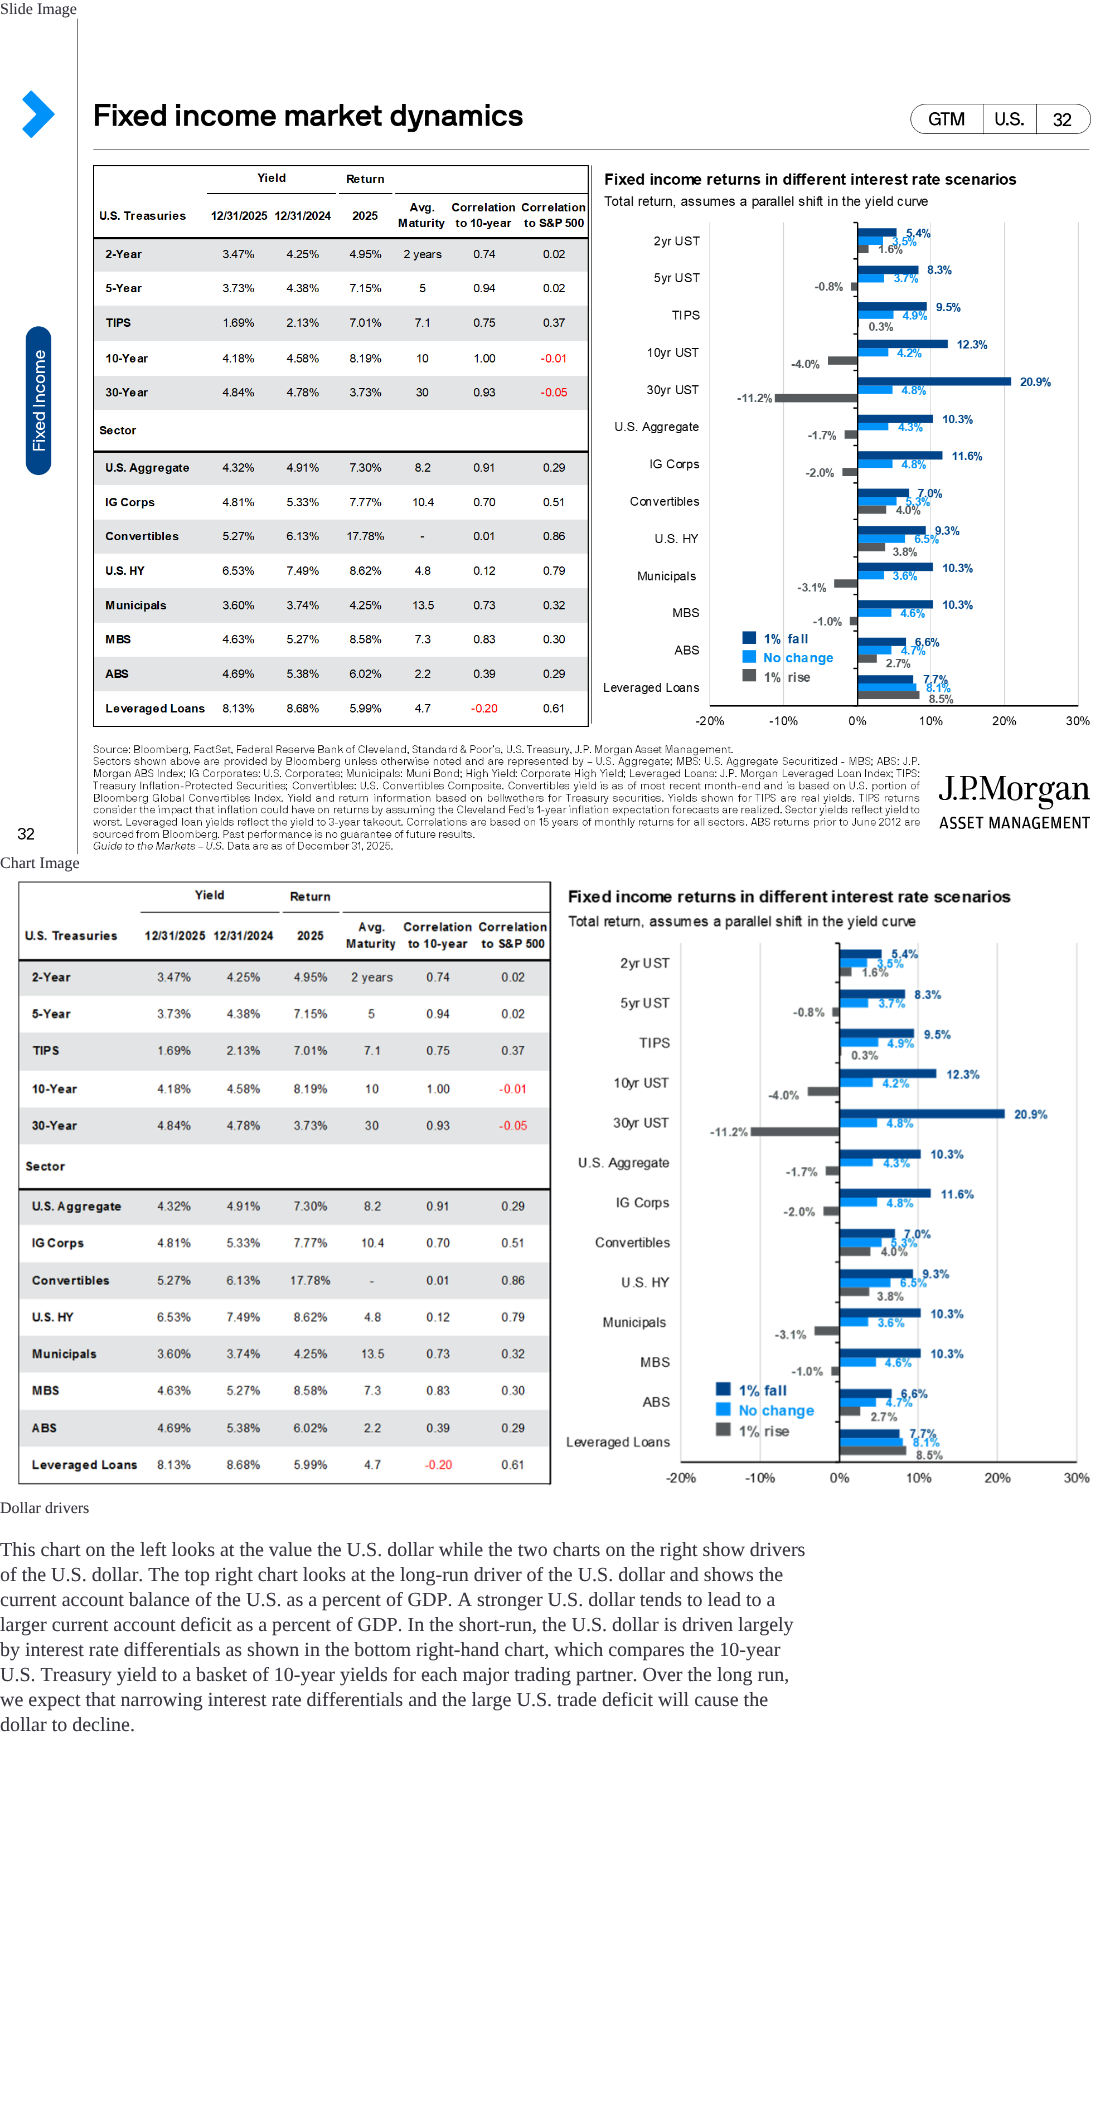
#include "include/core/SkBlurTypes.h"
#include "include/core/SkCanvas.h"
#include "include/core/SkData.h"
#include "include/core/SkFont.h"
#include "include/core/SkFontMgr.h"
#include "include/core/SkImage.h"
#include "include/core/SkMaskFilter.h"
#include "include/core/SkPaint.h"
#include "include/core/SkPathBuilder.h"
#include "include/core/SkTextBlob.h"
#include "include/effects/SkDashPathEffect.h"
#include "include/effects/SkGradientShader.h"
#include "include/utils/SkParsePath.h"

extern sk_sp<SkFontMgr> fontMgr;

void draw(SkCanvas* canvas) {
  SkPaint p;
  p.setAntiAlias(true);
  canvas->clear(SK_ColorWHITE);
  canvas->drawImageRect(SkImages::DeferredFromEncodedData(SkData::MakeFromFileName("images/1.png")), SkRect::MakeLTRB(18, 18, 1091, 854), SkSamplingOptions());
  canvas->drawImageRect(SkImages::DeferredFromEncodedData(SkData::MakeFromFileName("images/2.png")), SkRect::MakeLTRB(18, 881, 1090, 1486), SkSamplingOptions());
  SkFont font1(fontMgr->matchFamilyStyle("Liberation Serif", SkFontStyle::Normal()), 16);
  font1.setSubpixel(true);
  p.setColor(SkColorSetRGB(55, 55, 65));
  canvas->drawString("Slide Image", 0, 14, font1, p);
  canvas->drawString("Chart Image", 0, 868, font1, p);
  canvas->drawString("Dollar drivers", 0, 1513, font1, p);
  SkFont font2(fontMgr->matchFamilyStyle("Liberation Serif", SkFontStyle::Normal()), 20);
  font2.setSubpixel(true);
  canvas->drawString("This chart on the left looks at the value the U.S. dollar while the two charts on the right show drivers", 0, 1556, font2, p);
  canvas->drawString("of the U.S. dollar. The top right chart looks at the long-run driver of the U.S. dollar and shows the", 0, 1581, font2, p);
  canvas->drawString("current account balance of the U.S. as a percent of GDP. A stronger U.S. dollar tends to lead to a", 0, 1606, font2, p);
  canvas->drawString("larger current account deficit as a percent of GDP. In the short-run, the U.S. dollar is driven largely", 0, 1631, font2, p);
  canvas->drawString("by interest rate differentials as shown in the bottom right-hand chart, which compares the 10-year", 0, 1656, font2, p);
  canvas->drawString("U.S. Treasury yield to a basket of 10-year yields for each major trading partner. Over the long run,", 0, 1681, font2, p);
  canvas->drawString("we expect that narrowing interest rate differentials and the large U.S. trade deficit will cause the", 0, 1706, font2, p);
  canvas->drawString("dollar to decline.", 0, 1731, font2, p);
}
